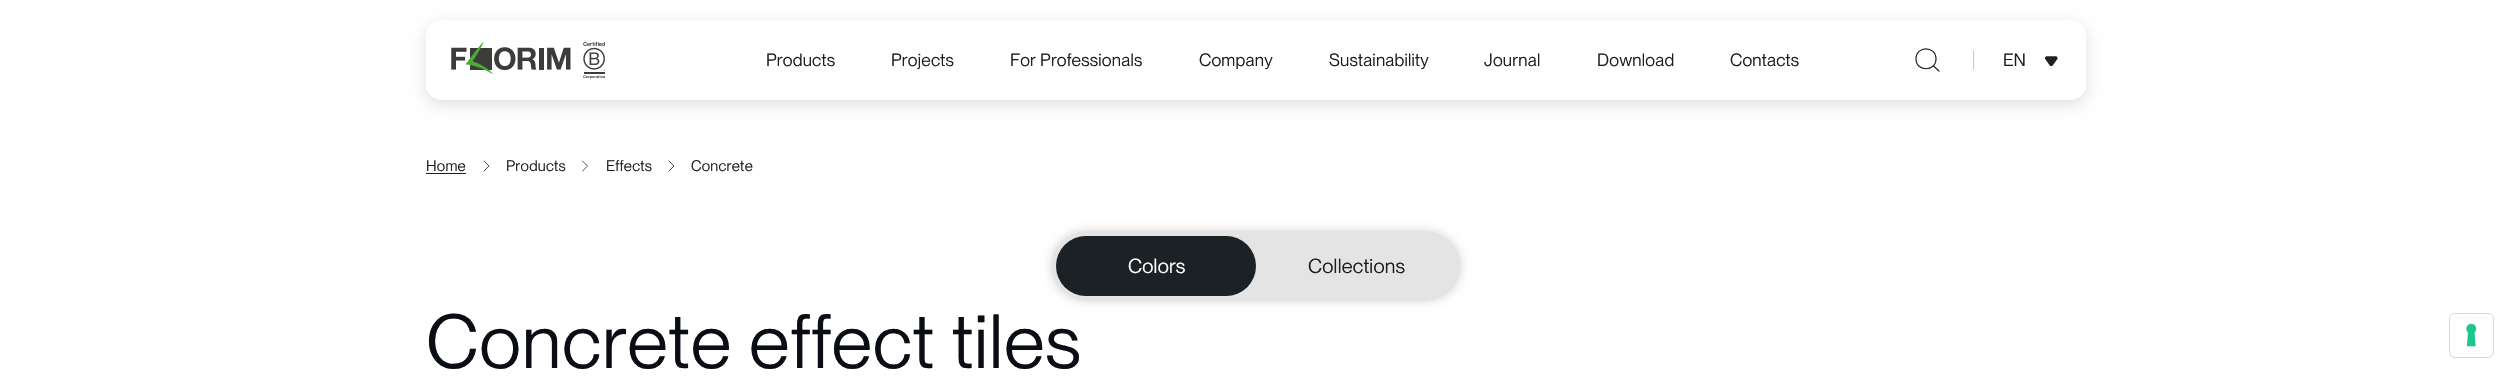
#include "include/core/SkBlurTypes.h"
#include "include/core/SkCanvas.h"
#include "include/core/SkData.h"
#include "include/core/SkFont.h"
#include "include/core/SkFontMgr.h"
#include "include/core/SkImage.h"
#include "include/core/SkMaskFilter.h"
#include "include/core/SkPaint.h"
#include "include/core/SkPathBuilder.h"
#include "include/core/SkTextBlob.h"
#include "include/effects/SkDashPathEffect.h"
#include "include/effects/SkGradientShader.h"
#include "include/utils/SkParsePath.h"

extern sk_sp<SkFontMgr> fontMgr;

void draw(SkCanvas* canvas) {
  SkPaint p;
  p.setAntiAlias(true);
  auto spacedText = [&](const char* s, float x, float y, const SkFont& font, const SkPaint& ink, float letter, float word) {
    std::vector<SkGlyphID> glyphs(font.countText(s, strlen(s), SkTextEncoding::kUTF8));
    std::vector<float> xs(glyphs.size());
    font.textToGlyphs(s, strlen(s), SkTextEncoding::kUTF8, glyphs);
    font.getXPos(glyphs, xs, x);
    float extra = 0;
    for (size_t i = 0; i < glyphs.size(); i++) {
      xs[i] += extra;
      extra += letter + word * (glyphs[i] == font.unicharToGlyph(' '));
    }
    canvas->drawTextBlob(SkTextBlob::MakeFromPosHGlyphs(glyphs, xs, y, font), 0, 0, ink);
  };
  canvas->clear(SK_ColorWHITE);
  p.setColor(SkColorSetARGB(31, 0, 0, 0));
  p.setMaskFilter(SkMaskFilter::MakeBlur(kNormal_SkBlurStyle, 7.5f));
  canvas->drawRoundRect(SkRect::MakeLTRB(426, 25, 2086, 105), 15, 15, p);
  p.setMaskFilter(nullptr);
  p.setColor(SK_ColorWHITE);
  canvas->drawRoundRect(SkRect::MakeLTRB(426, 20, 2086, 100), 15, 15, p);
  canvas->drawImageRect(SkImages::DeferredFromEncodedData(SkData::MakeFromFileName("images/1.png")), SkRect::MakeLTRB(451, 41, 605, 79), SkSamplingOptions());
  p.setStyle(SkPaint::kStroke_Style);
  p.setStrokeWidth(1.2f);
  p.setStrokeCap(SkPaint::kRound_Cap);
  p.setStrokeJoin(SkPaint::kRound_Join);
  p.setColor(SkColorSetRGB(27, 33, 36));
  canvas->drawPath(SkPathBuilder().moveTo(1939, 71).lineTo(1933.5f, 66).moveTo(1936, 59).cubicTo(1936, 72, 1916, 72, 1916, 59).cubicTo(1916, 45.5f, 1936, 45.5f, 1936, 59).close().detach(), p);
  p.setStyle(SkPaint::kFill_Style);
  p.setColor(SkColorSetRGB(194, 200, 211));
  canvas->drawRect(SkRect::MakeLTRB(1973, 50, 1974, 70), p);
  canvas->drawImageRect(SkImages::DeferredFromEncodedData(SkData::MakeFromFileName("images/2.png")), SkRect::MakeLTRB(2044, 56, 2058, 67), SkSamplingOptions());
  p.setColor(SkColorSetRGB(29, 29, 31));
  canvas->drawRect(SkRect::MakeLTRB(426, 173, 466, 174), p);
  p.setStyle(SkPaint::kStroke_Style);
  p.setStrokeWidth(0.8f);
  canvas->drawPath(SkPathBuilder().moveTo(484, 171).lineTo(489, 166).lineTo(484, 161).detach(), p);
  canvas->drawPath(SkPathBuilder().moveTo(582.5f, 171).lineTo(587.5f, 166).lineTo(582.5f, 161).detach(), p);
  canvas->drawPath(SkPathBuilder().moveTo(669, 171).lineTo(674, 166).lineTo(669, 161).detach(), p);
  canvas->save();
  canvas->clipPath(SkPathBuilder(SkPathFillType::kEvenOdd).moveTo(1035, 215).lineTo(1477, 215).lineTo(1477, 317).lineTo(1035, 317).close().moveTo(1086, 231).lineTo(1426, 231).cubicTo(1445.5f, 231, 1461, 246.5f, 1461, 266).cubicTo(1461, 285.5f, 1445.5f, 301, 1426, 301).lineTo(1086, 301).cubicTo(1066.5f, 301, 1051, 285.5f, 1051, 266).cubicTo(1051, 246.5f, 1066.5f, 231, 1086, 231).close().detach(), true);
  p.setStyle(SkPaint::kFill_Style);
  p.setColor(SkColorSetARGB(41, 0, 0, 0));
  p.setMaskFilter(SkMaskFilter::MakeBlur(kNormal_SkBlurStyle, 5));
  canvas->drawRoundRect(SkRect::MakeLTRB(1051, 231, 1461, 301), 35, 35, p);
  p.setMaskFilter(nullptr);
  canvas->restore();
  p.setColor(SkColorSetARGB(191, 219, 219, 219));
  canvas->drawRoundRect(SkRect::MakeLTRB(1051, 231, 1461, 301), 35, 35, p);
  p.setColor(SkColorSetRGB(27, 33, 36));
  canvas->drawRoundRect(SkRect::MakeLTRB(1056, 236, 1256, 296), 30, 30, p);
  p.setStyle(SkPaint::kStroke_Style);
  p.setStrokeWidth(1);
  p.setStrokeCap(SkPaint::kButt_Cap);
  p.setStrokeJoin(SkPaint::kMiter_Join);
  p.setColor(SkColorSetRGB(217, 217, 217));
  canvas->drawRoundRect(SkRect::MakeLTRB(2449.5f, 313.5f, 2493.5f, 357.5f), 5.5f, 5.5f, p);
  p.setStyle(SkPaint::kFill_Style);
  p.setColor(SK_ColorWHITE);
  canvas->drawRoundRect(SkRect::MakeLTRB(2450, 314, 2493, 356), 5, 5, p);
  canvas->drawImageRect(SkImages::DeferredFromEncodedData(SkData::MakeFromFileName("images/3.png")), SkRect::MakeLTRB(2466, 323, 2477, 347), SkSamplingOptions());
  SkFont font1(fontMgr->matchFamilyStyle("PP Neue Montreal", SkFontStyle::Italic()), 17.5f);
  font1.setSubpixel(true);
  p.setColor(SkColorSetRGB(29, 29, 31));
  spacedText("Products", 766, 66, font1, p, 0.2f, 0);
  spacedText("Projects", 891, 66, font1, p, 0.2f, 0);
  spacedText("For Professionals", 1010, 66, font1, p, 0.2f, 0);
  spacedText("Company", 1199, 66, font1, p, 0.2f, 0);
  spacedText("Sustainability", 1329, 66, font1, p, 0.2f, 0);
  spacedText("Journal", 1484, 66, font1, p, 0.2f, 0);
  spacedText("Download", 1597, 66, font1, p, 0.2f, 0);
  spacedText("Contacts", 1730, 66, font1, p, 0.2f, 0);
  canvas->drawString("EN", 2003, 66, font1, p);
  SkFont font2(fontMgr->matchFamilyStyle("PP Neue Montreal", SkFontStyle::Italic()), 15);
  font2.setSubpixel(true);
  spacedText("Home", 426, 171, font2, p, 0.25f, 0);
  spacedText("Products", 506, 171, font2, p, 0.25f, 0);
  spacedText("Effects", 606, 171, font2, p, 0.25f, 0);
  spacedText("Concrete", 691, 171, font2, p, 0.25f, 0);
  SkFont font3(fontMgr->matchFamilyStyle("PP Neue Montreal", SkFontStyle::Italic()), 75);
  font3.setSubpixel(true);
  p.setColor(SkColorSetRGB(10, 13, 20));
  spacedText("Concrete effect tiles", 426, 368, font3, p, 0.75f, 0);
  SkFont font4(fontMgr->matchFamilyStyle("PP Neue Montreal", SkFontStyle::Italic()), 20);
  font4.setSubpixel(true);
  p.setColor(SK_ColorWHITE);
  spacedText("Colors", 1128, 273, font4, p, 0.25f, 0);
  p.setColor(SkColorSetRGB(29, 29, 31));
  spacedText("Collections", 1308, 273, font4, p, 0.25f, 0);
}
